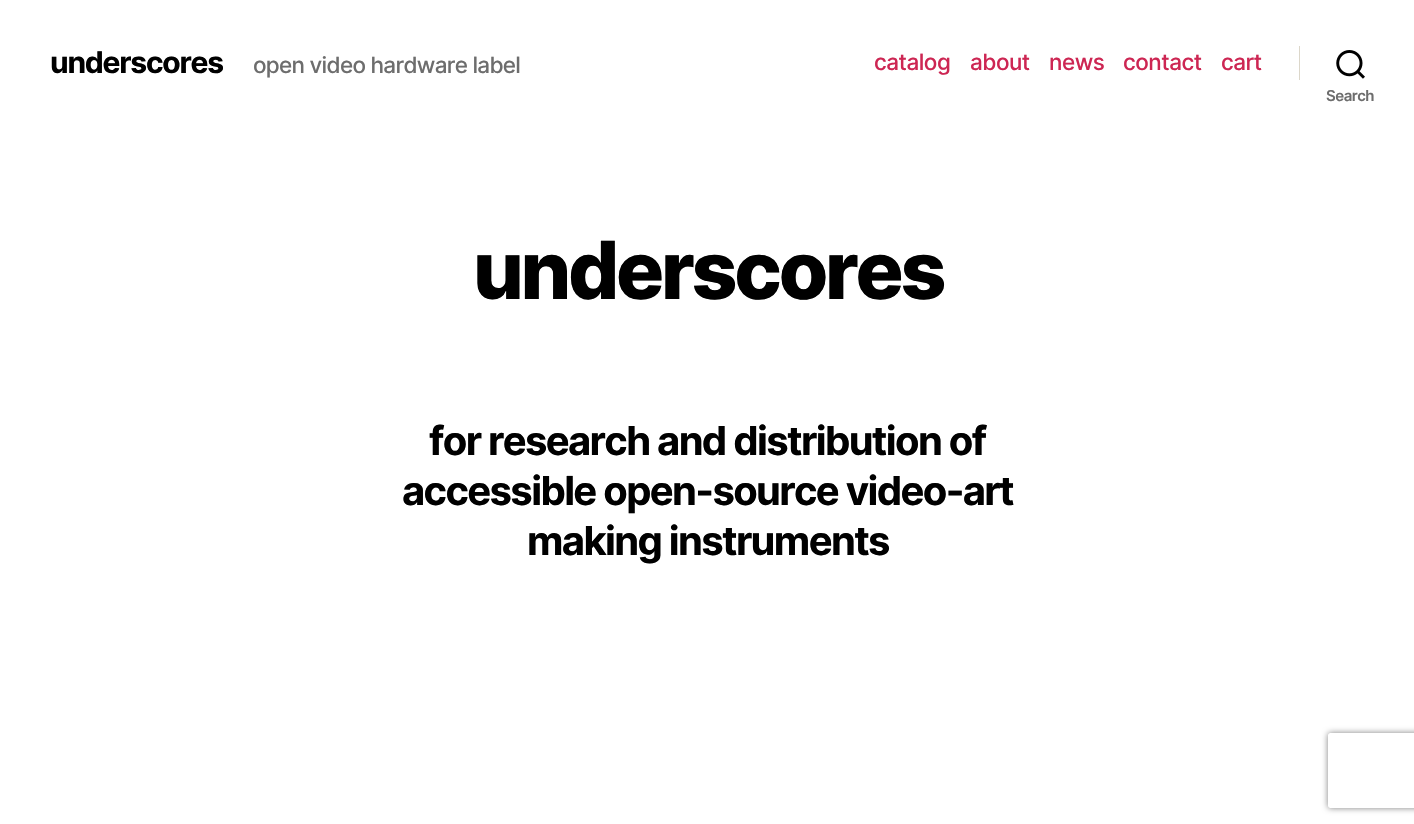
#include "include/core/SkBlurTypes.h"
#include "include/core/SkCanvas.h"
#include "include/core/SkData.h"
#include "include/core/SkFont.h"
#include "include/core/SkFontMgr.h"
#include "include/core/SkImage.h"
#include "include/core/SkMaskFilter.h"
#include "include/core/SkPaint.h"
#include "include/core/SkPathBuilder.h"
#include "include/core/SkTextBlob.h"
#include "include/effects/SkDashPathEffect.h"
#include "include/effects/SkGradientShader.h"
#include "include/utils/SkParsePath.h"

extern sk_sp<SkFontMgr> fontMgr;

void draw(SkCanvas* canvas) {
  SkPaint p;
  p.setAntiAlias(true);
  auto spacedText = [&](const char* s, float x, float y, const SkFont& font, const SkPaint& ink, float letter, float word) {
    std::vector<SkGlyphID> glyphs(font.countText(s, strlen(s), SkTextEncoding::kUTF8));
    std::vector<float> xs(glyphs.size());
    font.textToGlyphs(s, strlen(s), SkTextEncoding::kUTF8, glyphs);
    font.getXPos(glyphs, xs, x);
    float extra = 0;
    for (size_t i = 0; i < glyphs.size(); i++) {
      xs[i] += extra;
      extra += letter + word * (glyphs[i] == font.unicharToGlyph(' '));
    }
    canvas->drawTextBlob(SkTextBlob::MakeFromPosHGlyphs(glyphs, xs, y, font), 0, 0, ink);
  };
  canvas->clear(SK_ColorWHITE);
  p.setColor(SkColorSetRGB(220, 215, 202));
  canvas->drawRect(SkRect::MakeLTRB(1299, 46, 1300, 80), p);
  canvas->drawImageRect(SkImages::DeferredFromEncodedData(SkData::MakeFromFileName("images/1.png")), SkRect::MakeLTRB(1336, 50, 1365, 79), SkSamplingOptions());
  canvas->save();
  canvas->clipPath(SkPathBuilder(SkPathFillType::kEvenOdd).moveTo(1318, 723).lineTo(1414, 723).lineTo(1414, 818).lineTo(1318, 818).close().moveTo(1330.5f, 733).lineTo(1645.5f, 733).cubicTo(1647, 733, 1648, 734, 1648, 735.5f).lineTo(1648, 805.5f).cubicTo(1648, 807, 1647, 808, 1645.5f, 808).lineTo(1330.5f, 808).cubicTo(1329, 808, 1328, 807, 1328, 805.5f).lineTo(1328, 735.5f).cubicTo(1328, 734, 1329, 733, 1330.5f, 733).close().detach(), true);
  p.setColor(SkColorSetRGB(128, 128, 128));
  p.setMaskFilter(SkMaskFilter::MakeBlur(kNormal_SkBlurStyle, 3));
  canvas->drawRoundRect(SkRect::MakeLTRB(1328, 733, 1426, 808), 2.5f, 2.5f, p);
  p.setMaskFilter(nullptr);
  canvas->restore();
  SkFont font1(fontMgr->matchFamilyStyle("Inter", SkFontStyle::Bold()), 30);
  font1.setSubpixel(true);
  p.setColor(SK_ColorBLACK);
  spacedText("underscores", 50, 73, font1, p, -1.25f, 0);
  SkFont font2(fontMgr->matchFamilyStyle("Inter", SkFontStyle(500, SkFontStyle::kNormal_Width, SkFontStyle::kUpright_Slant)), 22.5f);
  font2.setSubpixel(true);
  p.setColor(SkColorSetRGB(109, 109, 109));
  spacedText("open video hardware label", 253, 73, font2, p, -0.7f, 0);
  p.setColor(SkColorSetRGB(205, 38, 83));
  spacedText("catalog", 874, 70, font2, p, -0.5f, 0);
  spacedText("about", 970, 70, font2, p, -0.5f, 0);
  spacedText("news", 1049, 70, font2, p, -0.5f, 0);
  spacedText("contact", 1123, 70, font2, p, -0.5f, 0);
  spacedText("cart", 1221, 70, font2, p, -0.5f, 0);
  SkFont font3(fontMgr->matchFamilyStyle("Inter", SkFontStyle(600, SkFontStyle::kNormal_Width, SkFontStyle::kUpright_Slant)), 15);
  font3.setSubpixel(true);
  p.setColor(SkColorSetRGB(109, 109, 109));
  spacedText("Search", 1326, 101, font3, p, -0.5f, 0);
  SkFont font4(fontMgr->matchFamilyStyle("Inter", SkFontStyle(800, SkFontStyle::kNormal_Width, SkFontStyle::kUpright_Slant)), 80);
  font4.setSubpixel(true);
  p.setColor(SK_ColorBLACK);
  spacedText("underscores", 473, 299, font4, p, -3.25f, 0);
  SkFont font5(fontMgr->matchFamilyStyle("Inter", SkFontStyle::Bold()), 40);
  font5.setSubpixel(true);
  spacedText("for research and distribution of", 429, 455, font5, p, -1.65f, 0);
  spacedText("accessible open-source video-art", 402, 505, font5, p, -1.65f, 0);
  spacedText("making instruments", 527, 555, font5, p, -1.65f, 0);
}
